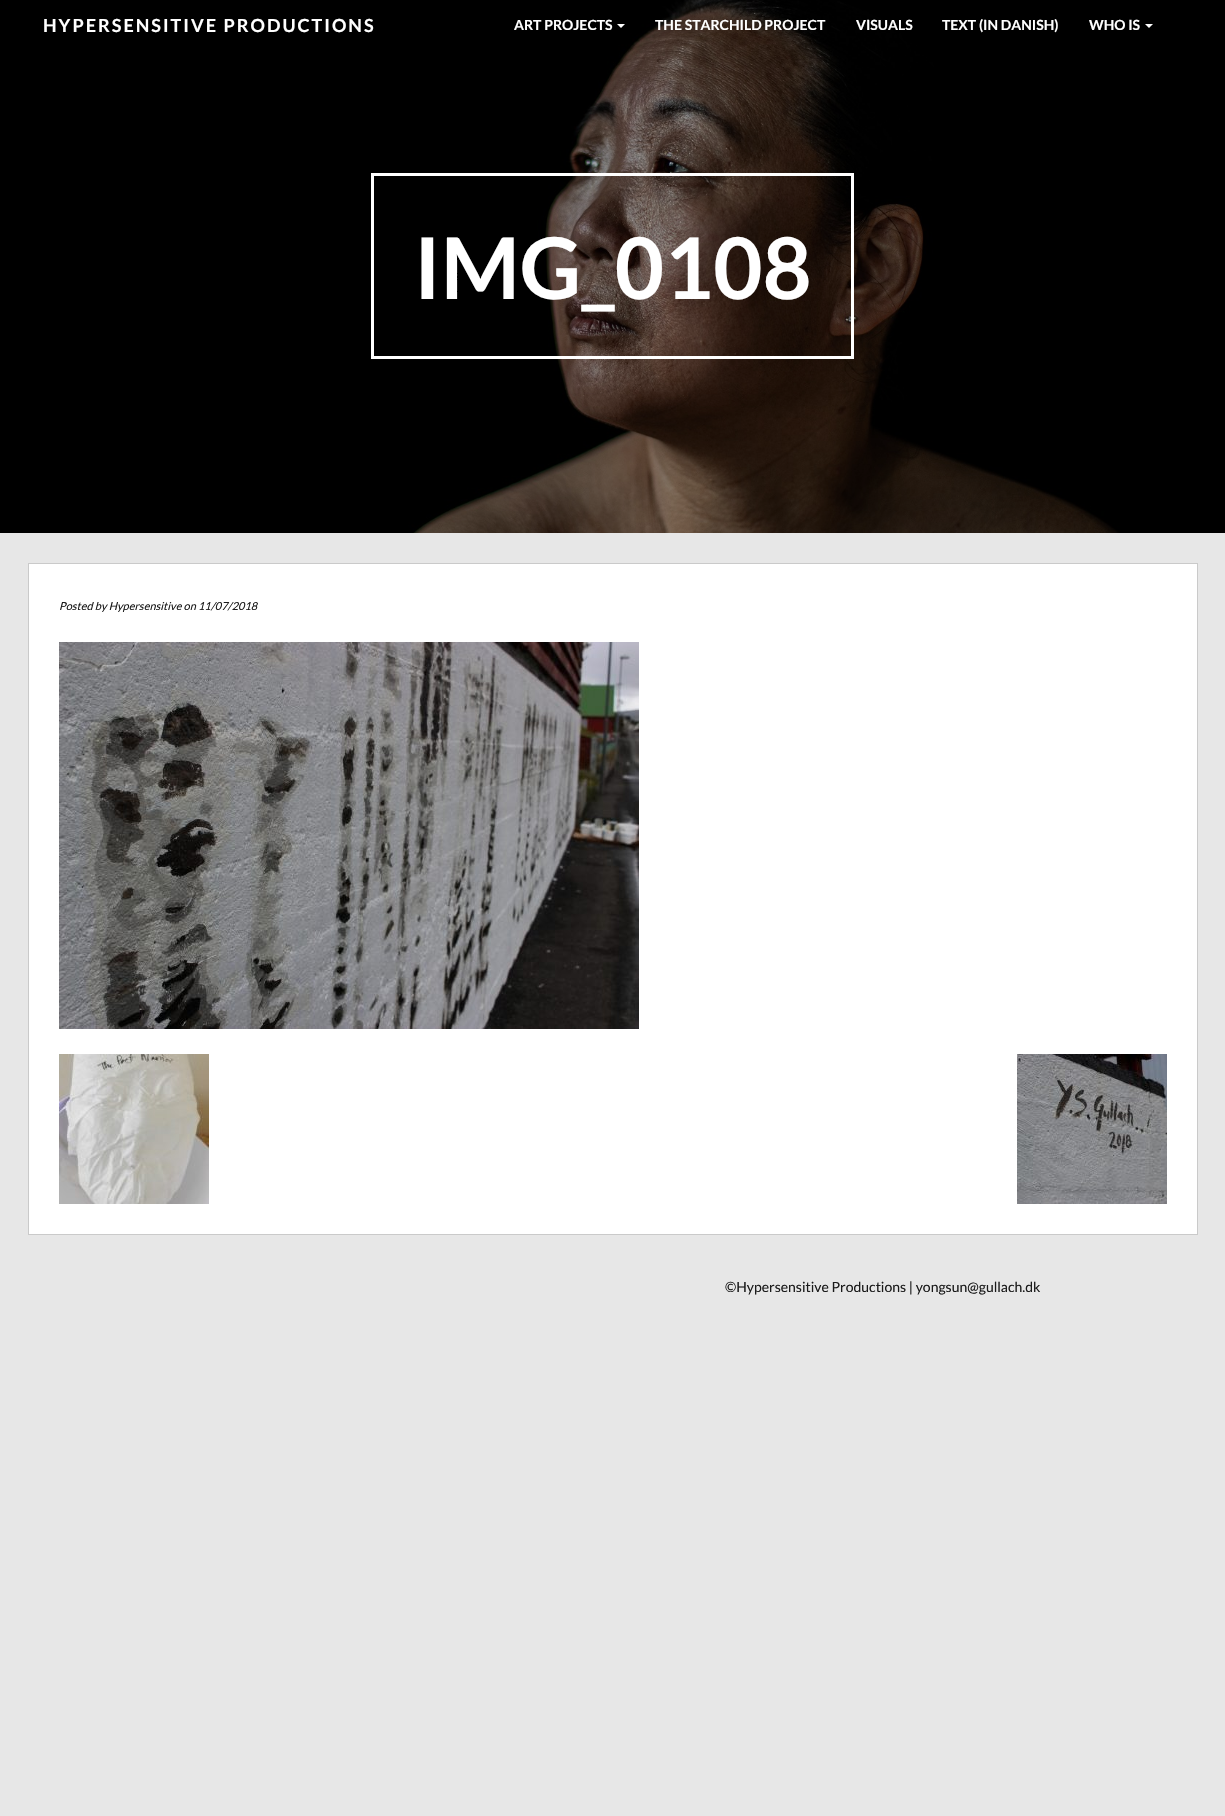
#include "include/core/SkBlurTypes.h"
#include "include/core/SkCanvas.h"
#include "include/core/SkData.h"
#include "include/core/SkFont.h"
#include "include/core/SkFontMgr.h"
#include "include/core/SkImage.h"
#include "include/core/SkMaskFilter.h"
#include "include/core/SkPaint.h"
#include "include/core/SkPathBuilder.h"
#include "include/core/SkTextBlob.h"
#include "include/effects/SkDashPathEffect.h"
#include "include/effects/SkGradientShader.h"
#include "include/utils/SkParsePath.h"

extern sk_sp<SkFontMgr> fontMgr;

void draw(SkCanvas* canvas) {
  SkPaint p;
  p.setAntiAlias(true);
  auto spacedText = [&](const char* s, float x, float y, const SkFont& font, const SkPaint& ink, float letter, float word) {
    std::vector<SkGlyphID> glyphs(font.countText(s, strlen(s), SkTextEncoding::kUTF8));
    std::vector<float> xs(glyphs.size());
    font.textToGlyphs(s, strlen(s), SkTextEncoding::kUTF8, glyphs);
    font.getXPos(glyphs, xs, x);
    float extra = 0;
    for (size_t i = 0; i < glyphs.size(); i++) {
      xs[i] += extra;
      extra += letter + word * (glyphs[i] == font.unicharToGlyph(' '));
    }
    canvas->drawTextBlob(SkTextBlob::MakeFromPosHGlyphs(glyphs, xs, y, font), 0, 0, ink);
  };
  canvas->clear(SkColorSetRGB(231, 231, 231));
  canvas->drawImageRect(SkImages::DeferredFromEncodedData(SkData::MakeFromFileName("images/1.png")), SkRect::MakeLTRB(0, 0, 1225, 533), SkSamplingOptions());
  p.setColor(SK_ColorWHITE);
  canvas->drawPath(SkPathBuilder().moveTo(617, 24).lineTo(625, 24).lineTo(621, 28).close().detach(), p);
  canvas->drawPath(SkPathBuilder().moveTo(1145, 24).lineTo(1153, 24).lineTo(1149, 28).close().detach(), p);
  p.setStyle(SkPaint::kStroke_Style);
  p.setStrokeWidth(3);
  canvas->drawRect(SkRect::MakeLTRB(372.5f, 174.5f, 852.5f, 357.5f), p);
  p.setStyle(SkPaint::kFill_Style);
  canvas->drawRect(SkRect::MakeLTRB(28.5f, 563.5f, 1197.5f, 1234.5f), p);
  p.setStyle(SkPaint::kStroke_Style);
  p.setStrokeWidth(1);
  p.setColor(SkColorSetRGB(202, 202, 202));
  canvas->drawRect(SkRect::MakeLTRB(28.5f, 563.5f, 1197.5f, 1234.5f), p);
  canvas->drawImageRect(SkImages::DeferredFromEncodedData(SkData::MakeFromFileName("images/2.png")), SkRect::MakeLTRB(59, 642, 639, 1029), SkSamplingOptions());
  canvas->drawImageRect(SkImages::DeferredFromEncodedData(SkData::MakeFromFileName("images/3.png")), SkRect::MakeLTRB(59, 1054, 209, 1204), SkSamplingOptions());
  canvas->drawImageRect(SkImages::DeferredFromEncodedData(SkData::MakeFromFileName("images/4.png")), SkRect::MakeLTRB(1017, 1054, 1167, 1204), SkSamplingOptions());
  SkFont font1(fontMgr->matchFamilyStyle("Lato", SkFontStyle::Bold()), 18);
  font1.setSubpixel(true);
  p.setStyle(SkPaint::kFill_Style);
  p.setColor(SK_ColorWHITE);
  spacedText("HYPERSENSITIVE PRODUCTIONS", 43, 32, font1, p, 2, 0);
  SkFont font2(fontMgr->matchFamilyStyle("Lato", SkFontStyle::Bold()), 14);
  font2.setSubpixel(true);
  canvas->drawString("ART PROJECTS", 514, 30, font2, p);
  canvas->drawString("THE STARCHILD PROJECT", 655, 30, font2, p);
  canvas->drawString("VISUALS", 856, 30, font2, p);
  canvas->drawString("TEXT (IN DANISH)", 942, 30, font2, p);
  canvas->drawString("WHO IS", 1089, 30, font2, p);
  SkFont font3(fontMgr->matchFamilyStyle("Lato", SkFontStyle::Bold()), 85);
  font3.setSubpixel(true);
  canvas->drawString("IMG_0108", 414, 299, font3, p);
  SkFont font4(fontMgr->matchFamilyStyle("Lato", SkFontStyle::Italic()), 11);
  font4.setSubpixel(true);
  p.setColor(SkColorSetRGB(26, 26, 26));
  canvas->drawString("Posted by Hypersensitive on 11/07/2018", 59, 610, font4, p);
  SkFont font5(fontMgr->matchFamilyStyle("Lato", SkFontStyle::Normal()), 14);
  font5.setSubpixel(true);
  canvas->drawString("©Hypersensitive Productions | yongsun@gullach.dk", 725, 1292, font5, p);
}
